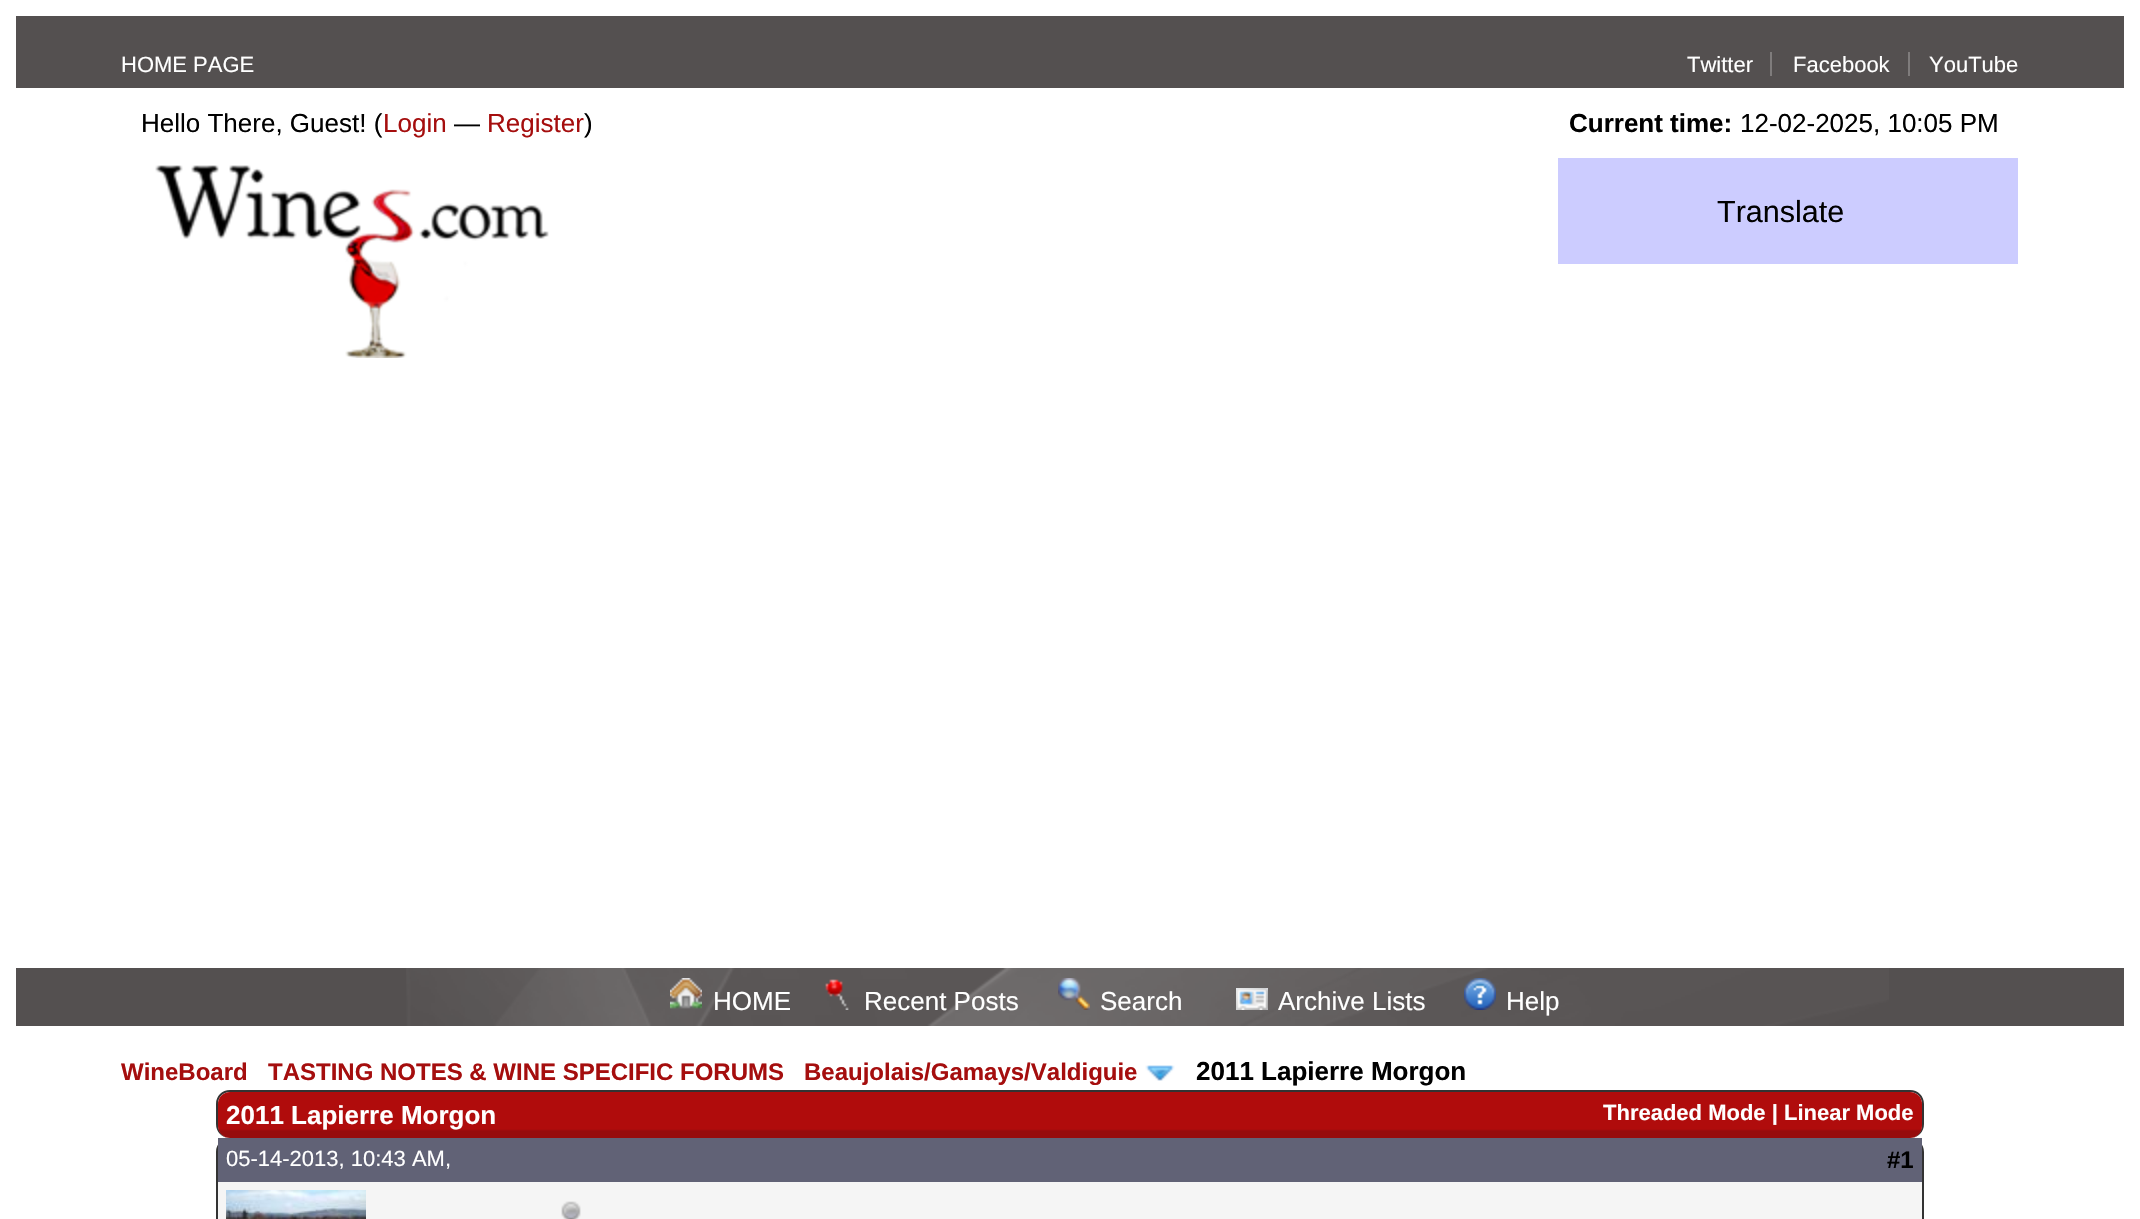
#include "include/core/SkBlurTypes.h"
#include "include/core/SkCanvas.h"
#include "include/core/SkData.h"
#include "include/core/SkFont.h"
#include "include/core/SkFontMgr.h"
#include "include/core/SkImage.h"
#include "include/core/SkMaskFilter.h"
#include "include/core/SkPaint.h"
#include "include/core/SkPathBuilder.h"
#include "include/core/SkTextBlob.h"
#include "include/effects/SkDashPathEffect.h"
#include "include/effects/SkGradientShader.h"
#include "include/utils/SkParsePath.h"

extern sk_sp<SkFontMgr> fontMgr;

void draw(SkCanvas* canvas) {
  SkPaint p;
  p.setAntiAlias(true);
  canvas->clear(SK_ColorWHITE);
  p.setColor(SkColorSetRGB(84, 80, 80));
  canvas->drawRect(SkRect::MakeLTRB(16, 16, 2124, 88), p);
  p.setColor(SkColorSetRGB(127, 124, 124));
  canvas->drawRect(SkRect::MakeLTRB(1770, 52, 1772, 76), p);
  canvas->drawRect(SkRect::MakeLTRB(1908, 52, 1910, 76), p);
  canvas->drawImageRect(SkImages::DeferredFromEncodedData(SkData::MakeFromFileName("images/1.png")), SkRect::MakeLTRB(155, 165, 549, 358), SkSamplingOptions());
  p.setColor(SkColorSetRGB(204, 204, 255));
  canvas->drawRect(SkRect::MakeLTRB(1558, 158, 2018, 264), p);
  p.setColor(SkColorSetRGB(84, 80, 80));
  canvas->drawRect(SkRect::MakeLTRB(16, 968, 2124, 1026), p);
  canvas->drawImageRect(SkImages::DeferredFromEncodedData(SkData::MakeFromFileName("images/2.png")), SkRect::MakeLTRB(406, 968, 1889, 1026), SkSamplingOptions());
  canvas->drawImageRect(SkImages::DeferredFromEncodedData(SkData::MakeFromFileName("images/3.png")), SkRect::MakeLTRB(670, 978, 702, 1009), SkSamplingOptions());
  canvas->drawImageRect(SkImages::DeferredFromEncodedData(SkData::MakeFromFileName("images/4.png")), SkRect::MakeLTRB(825, 979, 849, 1010), SkSamplingOptions());
  canvas->drawImageRect(SkImages::DeferredFromEncodedData(SkData::MakeFromFileName("images/5.png")), SkRect::MakeLTRB(1058, 978, 1090, 1010), SkSamplingOptions());
  canvas->drawImageRect(SkImages::DeferredFromEncodedData(SkData::MakeFromFileName("images/6.png")), SkRect::MakeLTRB(1236, 988, 1268, 1010), SkSamplingOptions());
  canvas->drawImageRect(SkImages::DeferredFromEncodedData(SkData::MakeFromFileName("images/7.png")), SkRect::MakeLTRB(1464, 978, 1496, 1010), SkSamplingOptions());
  canvas->drawImageRect(SkImages::DeferredFromEncodedData(SkData::MakeFromFileName("images/8.png")), SkRect::MakeLTRB(1145, 1065, 1175, 1081), SkSamplingOptions());
  p.setColor(SkColorSetRGB(51, 51, 51));
  canvas->drawPath(SkPathBuilder(SkPathFillType::kEvenOdd).moveTo(230, 1090).lineTo(1910, 1090).cubicTo(1918, 1090, 1924, 1096, 1924, 1104).lineTo(1924, 1124).cubicTo(1924, 1132, 1918, 1138, 1910, 1138).lineTo(230, 1138).cubicTo(222, 1138, 216, 1132, 216, 1124).lineTo(216, 1104).cubicTo(216, 1096, 222, 1090, 230, 1090).close().moveTo(230, 1092).lineTo(1910, 1092).cubicTo(1917, 1092, 1922, 1097, 1922, 1104).lineTo(1922, 1124).cubicTo(1922, 1132, 1917, 1138, 1910, 1138).lineTo(230, 1138).cubicTo(223, 1138, 218, 1132, 218, 1124).lineTo(218, 1104).cubicTo(218, 1097, 223, 1092, 230, 1092).close().detach(), p);
  canvas->drawImageRect(SkImages::DeferredFromEncodedData(SkData::MakeFromFileName("images/9.png")), SkRect::MakeLTRB(218, 1092, 1922, 1138), SkSamplingOptions());
  canvas->drawPath(SkPathBuilder(SkPathFillType::kEvenOdd).moveTo(230, 1138).lineTo(1910, 1138).cubicTo(1918, 1138, 1924, 1144, 1924, 1152).lineTo(1924, 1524).cubicTo(1924, 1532, 1918, 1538, 1910, 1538).lineTo(230, 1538).cubicTo(222, 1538, 216, 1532, 216, 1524).lineTo(216, 1152).cubicTo(216, 1144, 222, 1138, 230, 1138).close().moveTo(230, 1138).lineTo(1910, 1138).cubicTo(1917, 1138, 1922, 1144, 1922, 1152).lineTo(1922, 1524).cubicTo(1922, 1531, 1917, 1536, 1910, 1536).lineTo(230, 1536).cubicTo(223, 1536, 218, 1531, 218, 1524).lineTo(218, 1152).cubicTo(218, 1144, 223, 1138, 230, 1138).close().detach(), p);
  p.setColor(SkColorSetRGB(97, 98, 118));
  canvas->drawRect(SkRect::MakeLTRB(218, 1138, 1922, 1182), p);
  p.setColor(SkColorSetRGB(245, 245, 245));
  canvas->drawRect(SkRect::MakeLTRB(218, 1182, 1922, 1219), p);
  canvas->drawImageRect(SkImages::DeferredFromEncodedData(SkData::MakeFromFileName("images/10.png")), SkRect::MakeLTRB(226, 1190, 366, 1219), SkSamplingOptions());
  canvas->drawImageRect(SkImages::DeferredFromEncodedData(SkData::MakeFromFileName("images/11.png")), SkRect::MakeLTRB(561, 1201, 581, 1219), SkSamplingOptions());
  SkFont font1(fontMgr->matchFamilyStyle("Liberation Sans", SkFontStyle::Normal()), 22);
  font1.setSubpixel(true);
  p.setColor(SK_ColorWHITE);
  canvas->drawString("HOME PAGE", 121, 72, font1, p);
  canvas->drawString("Twitter", 1687, 72, font1, p);
  canvas->drawString("Facebook", 1793, 72, font1, p);
  canvas->drawString("YouTube", 1929, 72, font1, p);
  SkFont font2(fontMgr->matchFamilyStyle("Liberation Sans", SkFontStyle::Normal()), 26);
  font2.setSubpixel(true);
  p.setColor(SK_ColorBLACK);
  canvas->drawString("Hello There, Guest! (", 141, 132, font2, p);
  p.setColor(SkColorSetRGB(165, 14, 14));
  canvas->drawString("Login", 383, 132, font2, p);
  p.setColor(SK_ColorBLACK);
  canvas->drawString("—", 454, 132, font2, p);
  p.setColor(SkColorSetRGB(165, 14, 14));
  canvas->drawString("Register", 487, 132, font2, p);
  p.setColor(SK_ColorBLACK);
  canvas->drawString(")", 584, 132, font2, p);
  SkFont font3(fontMgr->matchFamilyStyle("Liberation Sans", SkFontStyle::Bold()), 26);
  font3.setSubpixel(true);
  canvas->drawString("Current time:", 1569, 132, font3, p);
  canvas->drawString("12-02-2025, 10:05 PM", 1740, 132, font2, p);
  SkFont font4(fontMgr->matchFamilyStyle("Liberation Sans", SkFontStyle::Normal()), 30.5f);
  font4.setSubpixel(true);
  canvas->drawString("Translate", 1717, 222, font4, p);
  p.setColor(SK_ColorWHITE);
  canvas->drawString("HOME", 713, 1010, font2, p);
  canvas->drawString("Recent Posts", 864, 1010, font2, p);
  canvas->drawString("Search", 1100, 1010, font2, p);
  canvas->drawString("Archive Lists", 1278, 1010, font2, p);
  canvas->drawString("Help", 1506, 1010, font2, p);
  SkFont font5(fontMgr->matchFamilyStyle("Liberation Sans", SkFontStyle::Bold()), 24);
  font5.setSubpixel(true);
  p.setColor(SkColorSetRGB(165, 14, 14));
  canvas->drawString("WineBoard", 121, 1080, font5, p);
  canvas->drawString("TASTING NOTES & WINE SPECIFIC FORUMS", 268, 1080, font5, p);
  canvas->drawString("Beaujolais/Gamays/Valdiguie", 804, 1080, font5, p);
  p.setColor(SK_ColorBLACK);
  canvas->drawString("2011 Lapierre Morgon", 1196, 1080, font3, p);
  p.setColor(SK_ColorWHITE);
  canvas->drawString("2011 Lapierre Morgon", 226, 1124, font3, p);
  SkFont font6(fontMgr->matchFamilyStyle("Liberation Sans", SkFontStyle::Bold()), 22);
  font6.setSubpixel(true);
  canvas->drawString("Threaded Mode | Linear Mode", 1603, 1120, font6, p);
  canvas->drawString("05-14-2013, 10:43 AM,", 226, 1166, font1, p);
  p.setColor(SK_ColorBLACK);
  canvas->drawString("#1", 1887, 1168, font5, p);
}
